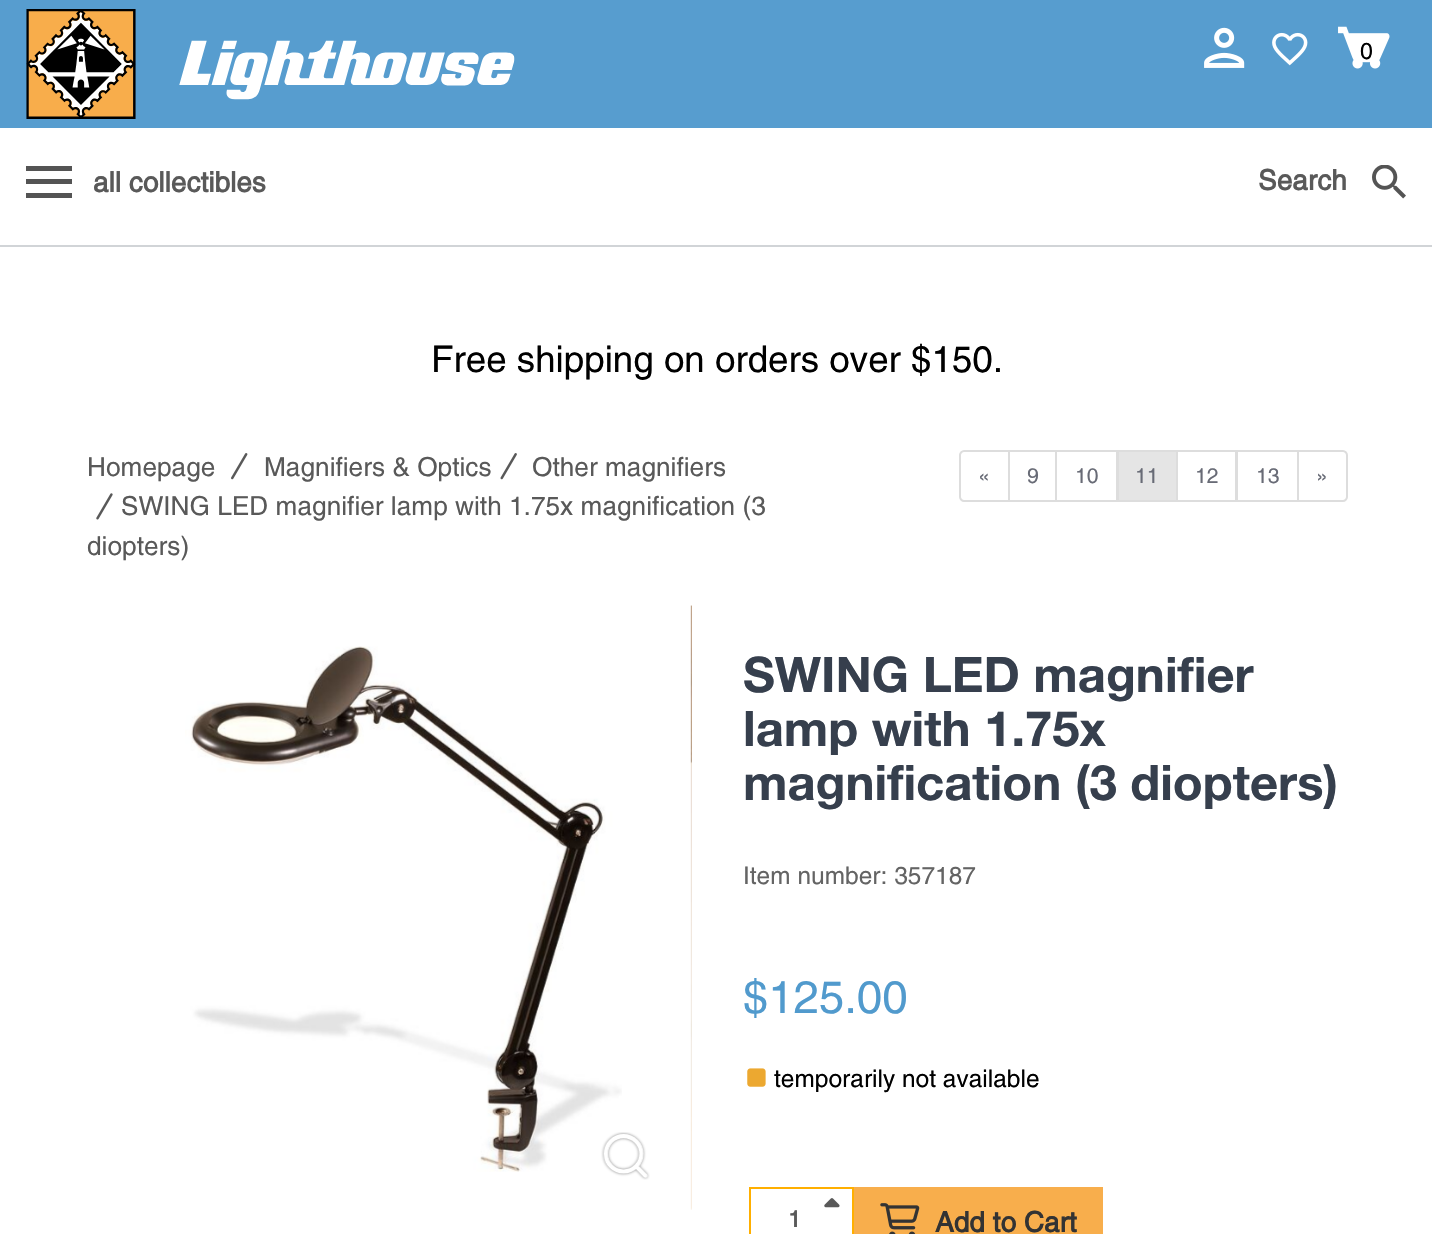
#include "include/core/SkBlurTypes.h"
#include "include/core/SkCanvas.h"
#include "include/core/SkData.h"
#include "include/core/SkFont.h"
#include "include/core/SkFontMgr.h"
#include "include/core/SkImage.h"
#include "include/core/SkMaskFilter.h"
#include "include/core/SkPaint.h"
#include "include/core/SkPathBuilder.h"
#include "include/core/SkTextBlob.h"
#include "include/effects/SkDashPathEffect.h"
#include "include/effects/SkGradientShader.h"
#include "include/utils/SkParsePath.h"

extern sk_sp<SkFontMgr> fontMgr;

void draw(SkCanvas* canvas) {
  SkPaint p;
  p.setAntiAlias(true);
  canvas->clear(SK_ColorWHITE);
  p.setColor(SkColorSetRGB(87, 157, 207));
  canvas->drawRect(SkRect::MakeLTRB(0, 0, 1432, 128), p);
  canvas->drawImageRect(SkImages::DeferredFromEncodedData(SkData::MakeFromFileName("images/1.png")), SkRect::MakeLTRB(26, 9, 515, 119), SkSamplingOptions());
  canvas->drawImageRect(SkImages::DeferredFromEncodedData(SkData::MakeFromFileName("images/2.png")), SkRect::MakeLTRB(1204, 27, 1245, 68), SkSamplingOptions());
  canvas->drawImageRect(SkImages::DeferredFromEncodedData(SkData::MakeFromFileName("images/3.png")), SkRect::MakeLTRB(1272, 32, 1308, 66), SkSamplingOptions());
  canvas->drawImageRect(SkImages::DeferredFromEncodedData(SkData::MakeFromFileName("images/4.png")), SkRect::MakeLTRB(1338, 26, 1390, 69), SkSamplingOptions());
  p.setColor(SkColorSetRGB(84, 84, 84));
  canvas->drawRect(SkRect::MakeLTRB(26, 166, 72, 171), p);
  canvas->drawRect(SkRect::MakeLTRB(26, 179, 72, 184), p);
  canvas->drawRect(SkRect::MakeLTRB(26, 193, 72, 198), p);
  canvas->drawImageRect(SkImages::DeferredFromEncodedData(SkData::MakeFromFileName("images/5.png")), SkRect::MakeLTRB(1372, 165, 1406, 199), SkSamplingOptions());
  p.setColor(SkColorSetRGB(209, 212, 215));
  canvas->drawRect(SkRect::MakeLTRB(0, 245, 1432, 247), p);
  canvas->drawImageRect(SkImages::DeferredFromEncodedData(SkData::MakeFromFileName("images/6.png")), SkRect::MakeLTRB(231, 453, 248, 480), SkSamplingOptions());
  canvas->drawImageRect(SkImages::DeferredFromEncodedData(SkData::MakeFromFileName("images/7.png")), SkRect::MakeLTRB(500, 453, 517, 480), SkSamplingOptions());
  canvas->drawImageRect(SkImages::DeferredFromEncodedData(SkData::MakeFromFileName("images/8.png")), SkRect::MakeLTRB(96, 493, 113, 520), SkSamplingOptions());
  p.setStyle(SkPaint::kStroke_Style);
  p.setStrokeWidth(2);
  p.setColor(SkColorSetRGB(221, 221, 221));
  canvas->drawPath(SkPathBuilder().moveTo(964, 451).lineTo(1009, 451).lineTo(1009, 501).lineTo(964, 501).cubicTo(962, 501, 960, 499, 960, 497).lineTo(960, 455).cubicTo(960, 453, 962, 451, 964, 451).close().detach(), p);
  canvas->drawRect(SkRect::MakeLTRB(1009, 451, 1056, 501), p);
  canvas->drawRect(SkRect::MakeLTRB(1056, 451, 1117, 501), p);
  p.setStyle(SkPaint::kFill_Style);
  p.setColor(SkColorSetRGB(229, 229, 229));
  canvas->drawRect(SkRect::MakeLTRB(1118, 451, 1177, 501), p);
  p.setStyle(SkPaint::kStroke_Style);
  p.setColor(SkColorSetRGB(221, 221, 221));
  canvas->drawRect(SkRect::MakeLTRB(1118, 451, 1177, 501), p);
  canvas->drawRect(SkRect::MakeLTRB(1177, 451, 1236, 501), p);
  canvas->drawRect(SkRect::MakeLTRB(1237, 451, 1298, 501), p);
  p.setStyle(SkPaint::kFill_Style);
  p.setColor(SK_ColorWHITE);
  canvas->drawPath(SkPathBuilder().moveTo(1298, 451).lineTo(1343, 451).cubicTo(1345, 451, 1347, 453, 1347, 455).lineTo(1347, 497).cubicTo(1347, 499, 1345, 501, 1343, 501).lineTo(1298, 501).close().detach(), p);
  p.setStyle(SkPaint::kStroke_Style);
  p.setColor(SkColorSetRGB(221, 221, 221));
  canvas->drawPath(SkPathBuilder().moveTo(1298, 451).lineTo(1343, 451).cubicTo(1345, 451, 1347, 453, 1347, 455).lineTo(1347, 497).cubicTo(1347, 499, 1345, 501, 1343, 501).lineTo(1298, 501).close().detach(), p);
  canvas->drawImageRect(SkImages::DeferredFromEncodedData(SkData::MakeFromFileName("images/9.png")), SkRect::MakeLTRB(185, 646, 622, 1172), SkSamplingOptions());
  canvas->drawImageRect(SkImages::DeferredFromEncodedData(SkData::MakeFromFileName("images/10.png")), SkRect::MakeLTRB(601, 1132, 650, 1180), SkSamplingOptions());
  canvas->drawImageRect(SkImages::DeferredFromEncodedData(SkData::MakeFromFileName("images/11.png")), SkRect::MakeLTRB(690, 605, 692, 1210), SkSamplingOptions());
  canvas->drawImageRect(SkImages::DeferredFromEncodedData(SkData::MakeFromFileName("images/12.png")), SkRect::MakeLTRB(747, 1068, 766, 1087), SkSamplingOptions());
  p.setColor(SkColorSetRGB(255, 175, 0));
  canvas->drawRect(SkRect::MakeLTRB(750, 1188, 853, 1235), p);
  canvas->drawImageRect(SkImages::DeferredFromEncodedData(SkData::MakeFromFileName("images/13.png")), SkRect::MakeLTRB(824, 1198, 840, 1208), SkSamplingOptions());
  p.setStyle(SkPaint::kFill_Style);
  p.setColor(SkColorSetRGB(248, 174, 76));
  canvas->drawRect(SkRect::MakeLTRB(854, 1187, 1103, 1234), p);
  canvas->drawImageRect(SkImages::DeferredFromEncodedData(SkData::MakeFromFileName("images/14.png")), SkRect::MakeLTRB(880, 1203, 920, 1234), SkSamplingOptions());
  SkFont font1(fontMgr->matchFamilyStyle("Helvetica", SkFontStyle::Normal()), 23);
  font1.setSubpixel(true);
  p.setColor(SK_ColorBLACK);
  canvas->drawString("0", 1360, 59, font1, p);
  SkFont font2(fontMgr->matchFamilyStyle("Helvetica", SkFontStyle::Bold()), 28);
  font2.setSubpixel(true);
  p.setColor(SkColorSetRGB(89, 89, 89));
  canvas->drawString("all collectibles", 93, 192, font2, p);
  canvas->drawString("Search", 1258, 190, font2, p);
  SkFont font3(fontMgr->matchFamilyStyle("Helvetica", SkFontStyle::Normal()), 36.75f);
  font3.setSubpixel(true);
  p.setColor(SK_ColorBLACK);
  canvas->drawString("Free shipping on orders over $150.", 431, 372, font3, p);
  SkFont font4(fontMgr->matchFamilyStyle("Helvetica", SkFontStyle::Normal()), 26.25f);
  font4.setSubpixel(true);
  p.setColor(SkColorSetRGB(89, 89, 89));
  canvas->drawString("Homepage", 87, 476, font4, p);
  canvas->drawString("Magnifiers & Optics", 264, 476, font4, p);
  canvas->drawString("Other magnifiers", 532, 476, font4, p);
  canvas->drawString("SWING LED magnifier lamp with 1.75x magnification (3", 121, 515, font4, p);
  canvas->drawString("diopters)", 87, 555, font4, p);
  SkFont font5(fontMgr->matchFamilyStyle("Helvetica", SkFontStyle::Normal()), 21);
  font5.setSubpixel(true);
  p.setColor(SkColorSetRGB(104, 107, 118));
  canvas->drawString("«", 978, 483, font5, p);
  canvas->drawString("9", 1027, 483, font5, p);
  canvas->drawString("10", 1075, 483, font5, p);
  canvas->drawString("11", 1135, 483, font5, p);
  canvas->drawString("12", 1195, 483, font5, p);
  canvas->drawString("13", 1256, 483, font5, p);
  canvas->drawString("»", 1316, 483, font5, p);
  SkFont font6(fontMgr->matchFamilyStyle("Helvetica Neue", SkFontStyle::Bold()), 49);
  font6.setSubpixel(true);
  p.setColor(SkColorSetRGB(54, 63, 77));
  canvas->drawString("SWING LED magnifier", 743, 692, font6, p);
  canvas->drawString("lamp with 1.75x", 743, 746, font6, p);
  canvas->drawString("magnification (3 diopters)", 743, 800, font6, p);
  SkFont font7(fontMgr->matchFamilyStyle("Helvetica", SkFontStyle::Normal()), 24.5f);
  font7.setSubpixel(true);
  p.setColor(SkColorSetRGB(100, 100, 100));
  canvas->drawString("Item number: 357187", 743, 884, font7, p);
  SkFont font8(fontMgr->matchFamilyStyle("Helvetica", SkFontStyle::Normal()), 45.5f);
  font8.setSubpixel(true);
  p.setColor(SkColorSetRGB(81, 154, 205));
  canvas->drawString("$125.00", 743, 1013, font8, p);
  p.setColor(SK_ColorBLACK);
  canvas->drawString("temporarily not available", 774, 1087, font7, p);
  SkFont font9(fontMgr->matchFamilyStyle("Helvetica", SkFontStyle::Bold()), 23);
  font9.setSubpixel(true);
  p.setColor(SkColorSetRGB(89, 89, 89));
  canvas->drawString("1", 788, 1227, font9, p);
  p.setColor(SkColorSetRGB(51, 51, 51));
  canvas->drawString("Add to Cart", 935, 1232, font2, p);
}
